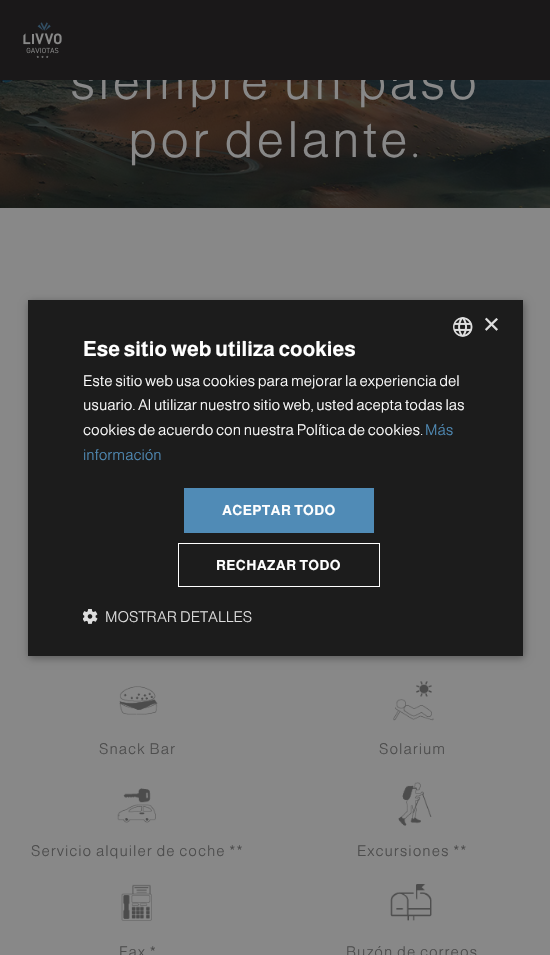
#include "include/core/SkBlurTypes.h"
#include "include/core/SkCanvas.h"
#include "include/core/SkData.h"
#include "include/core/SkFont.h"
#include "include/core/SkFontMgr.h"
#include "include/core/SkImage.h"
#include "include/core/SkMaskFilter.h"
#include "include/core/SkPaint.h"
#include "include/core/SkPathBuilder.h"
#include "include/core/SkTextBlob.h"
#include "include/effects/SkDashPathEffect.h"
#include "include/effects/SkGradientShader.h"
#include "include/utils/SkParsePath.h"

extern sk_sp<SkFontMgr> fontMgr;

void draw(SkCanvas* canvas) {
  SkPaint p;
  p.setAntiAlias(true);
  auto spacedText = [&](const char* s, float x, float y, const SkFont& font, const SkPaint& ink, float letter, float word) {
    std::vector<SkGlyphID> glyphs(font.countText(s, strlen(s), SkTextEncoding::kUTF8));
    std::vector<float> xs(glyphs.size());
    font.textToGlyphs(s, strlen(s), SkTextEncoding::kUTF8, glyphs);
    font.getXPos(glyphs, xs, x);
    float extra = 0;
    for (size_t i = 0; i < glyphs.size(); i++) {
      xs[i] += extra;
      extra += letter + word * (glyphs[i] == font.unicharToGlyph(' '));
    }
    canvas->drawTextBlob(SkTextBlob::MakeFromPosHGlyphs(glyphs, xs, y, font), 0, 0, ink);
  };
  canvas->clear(SkColorSetRGB(136, 136, 136));
  canvas->drawImageRect(SkImages::DeferredFromEncodedData(SkData::MakeFromFileName("images/2.png")), SkRect::MakeLTRB(0, 80, 550, 208), SkSamplingOptions());
  canvas->drawImageRect(SkImages::DeferredFromEncodedData(SkData::MakeFromFileName("images/3.png")), SkRect::MakeLTRB(119, 686, 158, 715), SkSamplingOptions());
  canvas->drawImageRect(SkImages::DeferredFromEncodedData(SkData::MakeFromFileName("images/4.png")), SkRect::MakeLTRB(393, 681, 434, 721), SkSamplingOptions());
  canvas->drawImageRect(SkImages::DeferredFromEncodedData(SkData::MakeFromFileName("images/5.png")), SkRect::MakeLTRB(117, 788, 156, 823), SkSamplingOptions());
  canvas->drawImageRect(SkImages::DeferredFromEncodedData(SkData::MakeFromFileName("images/6.png")), SkRect::MakeLTRB(398, 782, 432, 826), SkSamplingOptions());
  canvas->drawImageRect(SkImages::DeferredFromEncodedData(SkData::MakeFromFileName("images/7.png")), SkRect::MakeLTRB(121, 884, 152, 921), SkSamplingOptions());
  canvas->drawImageRect(SkImages::DeferredFromEncodedData(SkData::MakeFromFileName("images/8.png")), SkRect::MakeLTRB(390, 884, 432, 921), SkSamplingOptions());
  p.setColor(SkColorSetARGB(89, 0, 0, 0));
  p.setMaskFilter(SkMaskFilter::MakeBlur(kNormal_SkBlurStyle, 4));
  canvas->drawRect(SkRect::MakeLTRB(29, 302, 524, 658), p);
  p.setMaskFilter(nullptr);
  p.setColor(SkColorSetRGB(28, 28, 28));
  canvas->drawRect(SkRect::MakeLTRB(28, 300, 523, 656), p);
  canvas->drawImageRect(SkImages::DeferredFromEncodedData(SkData::MakeFromFileName("images/9.png")), SkRect::MakeLTRB(453, 317, 473, 337), SkSamplingOptions());
  p.setColor(SkColorSetRGB(80, 139, 182));
  canvas->drawRect(SkRect::MakeLTRB(184, 488, 374, 533), p);
  p.setStyle(SkPaint::kStroke_Style);
  p.setStrokeWidth(1);
  p.setColor(SK_ColorWHITE);
  canvas->drawRect(SkRect::MakeLTRB(178.5f, 543.5f, 379.5f, 586.5f), p);
  canvas->drawImageRect(SkImages::DeferredFromEncodedData(SkData::MakeFromFileName("images/10.png")), SkRect::MakeLTRB(83, 609, 98, 624), SkSamplingOptions());
  SkFont font1(fontMgr->matchFamilyStyle("Almarai", SkFontStyle(300, SkFontStyle::kNormal_Width, SkFontStyle::kUpright_Slant)), 50);
  font1.setSubpixel(true);
  p.setStyle(SkPaint::kFill_Style);
  p.setColor(SkColorSetRGB(136, 136, 136));
  spacedText("siempre un paso", 70, 99, font1, p, 3, 0);
  p.setColor(SkColorSetRGB(26, 24, 25));
  canvas->drawRect(SkRect::MakeLTRB(0, 0, 550, 80), p);
  canvas->drawImageRect(SkImages::DeferredFromEncodedData(SkData::MakeFromFileName("images/1.png")), SkRect::MakeLTRB(23, 22, 62, 58), SkSamplingOptions());
  p.setColor(SkColorSetRGB(136, 136, 136));
  spacedText("por delante.", 128, 157, font1, p, 3, 0);
  SkFont font2(fontMgr->matchFamilyStyle("Almarai", SkFontStyle(300, SkFontStyle::kNormal_Width, SkFontStyle::kUpright_Slant)), 15);
  font2.setSubpixel(true);
  p.setColor(SkColorSetRGB(77, 77, 77));
  spacedText("Snack Bar", 99, 754, font2, p, 1, 0);
  spacedText("Solarium", 379, 754, font2, p, 1, 0);
  spacedText("Servicio alquiler de coche **", 31, 856, font2, p, 1, 0);
  spacedText("Excursiones **", 357, 856, font2, p, 1, 0);
  spacedText("Fax *", 119, 957, font2, p, 1, 0);
  spacedText("Buzón de correos", 346, 957, font2, p, 1, 0);
  SkFont font3(fontMgr->matchFamilyStyle("Liberation Sans", SkFontStyle::Normal()), 29);
  font3.setSubpixel(true);
  p.setColor(SkColorSetRGB(221, 221, 221));
  canvas->drawString("×", 483, 334, font3, p);
  SkFont font4(fontMgr->matchFamilyStyle("Almarai", SkFontStyle::Bold()), 21);
  font4.setSubpixel(true);
  p.setColor(SK_ColorWHITE);
  canvas->drawString("Ese sitio web utiliza cookies", 83, 356, font4, p);
  canvas->drawString("Este sitio web usa cookies para mejorar la experiencia del", 83, 386, font2, p);
  canvas->drawString("usuario. Al utilizar nuestro sitio web, usted acepta todas las", 83, 410, font2, p);
  canvas->drawString("cookies de acuerdo con nuestra Política de cookies.", 83, 435, font2, p);
  p.setColor(SkColorSetRGB(80, 139, 182));
  canvas->drawString("Más", 425, 435, font2, p);
  canvas->drawString("información", 83, 460, font2, p);
  SkFont font5(fontMgr->matchFamilyStyle("Almarai", SkFontStyle::Bold()), 14);
  font5.setSubpixel(true);
  p.setColor(SK_ColorWHITE);
  spacedText("ACEPTAR TODO", 222, 515, font5, p, 0.4f, 0);
  spacedText("RECHAZAR TODO", 216, 570, font5, p, 0.4f, 0);
  p.setColor(SkColorSetRGB(221, 221, 221));
  canvas->drawString("MOSTRAR DETALLES", 105, 622, font2, p);
}
